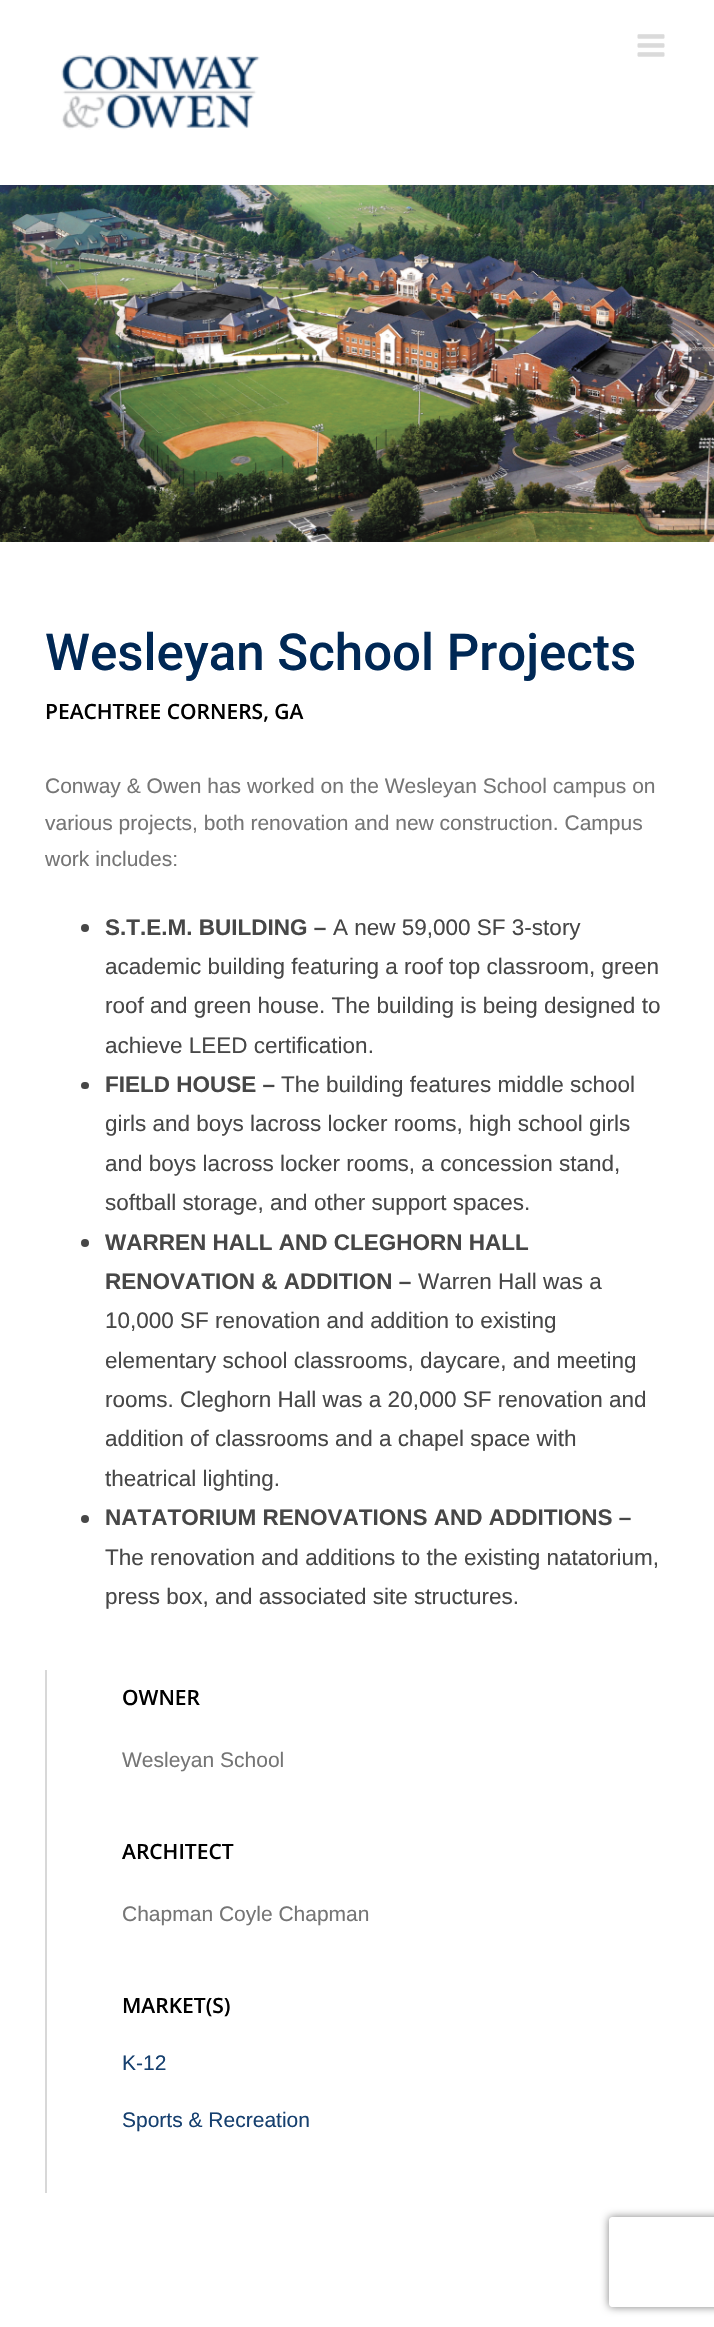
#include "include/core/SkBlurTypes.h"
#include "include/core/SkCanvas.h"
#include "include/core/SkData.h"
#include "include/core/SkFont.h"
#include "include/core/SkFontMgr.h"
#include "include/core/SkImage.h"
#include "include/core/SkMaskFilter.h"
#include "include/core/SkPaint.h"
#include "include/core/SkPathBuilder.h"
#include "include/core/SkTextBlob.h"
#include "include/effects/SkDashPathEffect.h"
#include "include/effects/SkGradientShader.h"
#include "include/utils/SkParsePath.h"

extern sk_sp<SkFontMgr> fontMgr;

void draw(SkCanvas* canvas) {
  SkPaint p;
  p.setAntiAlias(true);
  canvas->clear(SK_ColorWHITE);
  canvas->drawImageRect(SkImages::DeferredFromEncodedData(SkData::MakeFromFileName("images/1.png")), SkRect::MakeLTRB(637, 34, 665, 57), SkSamplingOptions());
  canvas->drawImageRect(SkImages::DeferredFromEncodedData(SkData::MakeFromFileName("images/2.png")), SkRect::MakeLTRB(61, 55, 260, 130), SkSamplingOptions());
  canvas->drawImageRect(SkImages::DeferredFromEncodedData(SkData::MakeFromFileName("images/3.png")), SkRect::MakeLTRB(0, 185, 714, 542), SkSamplingOptions());
  p.setColor(SkColorSetRGB(71, 71, 71));
  canvas->drawCircle(85, 928, 4, p);
  canvas->drawRoundRect(SkRect::MakeLTRB(81, 1082, 89, 1089), 3.5f, 3.5f, p);
  canvas->drawCircle(85, 1243, 4, p);
  canvas->drawCircle(85, 1519, 4, p);
  p.setColor(SkColorSetRGB(216, 216, 216));
  canvas->drawRect(SkRect::MakeLTRB(45, 1670, 47, 2193), p);
  canvas->save();
  canvas->clipPath(SkPathBuilder(SkPathFillType::kEvenOdd).moveTo(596, 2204).lineTo(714, 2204).lineTo(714, 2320).lineTo(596, 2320).close().moveTo(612, 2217).lineTo(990, 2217).cubicTo(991.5f, 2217, 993, 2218.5f, 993, 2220).lineTo(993, 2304).cubicTo(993, 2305.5f, 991.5f, 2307, 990, 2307).lineTo(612, 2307).cubicTo(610.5f, 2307, 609, 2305.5f, 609, 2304).lineTo(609, 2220).cubicTo(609, 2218.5f, 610.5f, 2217, 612, 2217).close().detach(), true);
  p.setColor(SkColorSetRGB(128, 128, 128));
  p.setMaskFilter(SkMaskFilter::MakeBlur(kNormal_SkBlurStyle, 4));
  canvas->drawRoundRect(SkRect::MakeLTRB(609, 2217, 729, 2307), 3, 3, p);
  p.setMaskFilter(nullptr);
  canvas->restore();
  SkFont font1(fontMgr->matchFamilyStyle("Roboto", SkFontStyle(500, SkFontStyle::kNormal_Width, SkFontStyle::kUpright_Slant)), 51);
  font1.setSubpixel(true);
  p.setColor(SkColorSetRGB(0, 40, 85));
  canvas->drawString("Wesleyan School Projects", 45, 670, font1, p);
  SkFont font2(fontMgr->matchFamilyStyle("Open Sans", SkFontStyle(600, SkFontStyle::kNormal_Width, SkFontStyle::kUpright_Slant)), 21);
  font2.setSubpixel(true);
  p.setColor(SK_ColorBLACK);
  canvas->drawString("PEACHTREE CORNERS, GA", 45, 719, font2, p);
  SkFont font3(fontMgr->matchFamilyStyle("Liberation Sans", SkFontStyle::Normal()), 21);
  font3.setSubpixel(true);
  p.setColor(SkColorSetRGB(117, 117, 117));
  canvas->drawString("Conway & Owen has worked on the Wesleyan School campus on", 45, 793, font3, p);
  canvas->drawString("various projects, both renovation and new construction. Campus", 45, 830, font3, p);
  canvas->drawString("work includes:", 45, 866, font3, p);
  SkFont font4(fontMgr->matchFamilyStyle("Liberation Sans", SkFontStyle::Bold()), 22.5f);
  font4.setSubpixel(true);
  p.setColor(SkColorSetRGB(71, 71, 71));
  canvas->drawString("S.T.E.M. BUILDING –", 105, 935, font4, p);
  SkFont font5(fontMgr->matchFamilyStyle("Liberation Sans", SkFontStyle::Normal()), 22.5f);
  font5.setSubpixel(true);
  canvas->drawString("A new 59,000 SF 3-story", 333, 935, font5, p);
  canvas->drawString("academic building featuring a roof top classroom, green", 105, 974, font5, p);
  canvas->drawString("roof and green house. The building is being designed to", 105, 1013, font5, p);
  canvas->drawString("achieve LEED certification.", 105, 1053, font5, p);
  canvas->drawString("FIELD HOUSE –", 105, 1092, font4, p);
  canvas->drawString("The building features middle school", 281, 1092, font5, p);
  canvas->drawString("girls and boys lacross locker rooms, high school girls", 105, 1131, font5, p);
  canvas->drawString("and boys lacross locker rooms, a concession stand,", 105, 1171, font5, p);
  canvas->drawString("softball storage, and other support spaces.", 105, 1210, font5, p);
  canvas->drawString("WARREN HALL AND CLEGHORN HALL", 105, 1250, font4, p);
  canvas->drawString("RENOVATION & ADDITION –", 105, 1289, font4, p);
  canvas->drawString("Warren Hall was a", 418, 1289, font5, p);
  canvas->drawString("10,000 SF renovation and addition to existing", 105, 1328, font5, p);
  canvas->drawString("elementary school classrooms, daycare, and meeting", 105, 1368, font5, p);
  canvas->drawString("rooms. Cleghorn Hall was a 20,000 SF renovation and", 105, 1407, font5, p);
  canvas->drawString("addition of classrooms and a chapel space with", 105, 1446, font5, p);
  canvas->drawString("theatrical lighting.", 105, 1486, font5, p);
  canvas->drawString("NATATORIUM RENOVATIONS AND ADDITIONS –", 105, 1525, font4, p);
  canvas->drawString("The renovation and additions to the existing natatorium,", 105, 1565, font5, p);
  canvas->drawString("press box, and associated site structures.", 105, 1604, font5, p);
  p.setColor(SK_ColorBLACK);
  canvas->drawString("OWNER", 122, 1705, font2, p);
  p.setColor(SkColorSetRGB(117, 117, 117));
  canvas->drawString("Wesleyan School", 122, 1767, font3, p);
  p.setColor(SK_ColorBLACK);
  canvas->drawString("ARCHITECT", 122, 1859, font2, p);
  p.setColor(SkColorSetRGB(117, 117, 117));
  canvas->drawString("Chapman Coyle Chapman", 122, 1921, font3, p);
  p.setColor(SK_ColorBLACK);
  canvas->drawString("MARKET(S)", 122, 2013, font2, p);
  p.setColor(SkColorSetRGB(22, 64, 111));
  canvas->drawString("K-12", 122, 2070, font3, p);
  canvas->drawString("Sports & Recreation", 122, 2127, font3, p);
}
